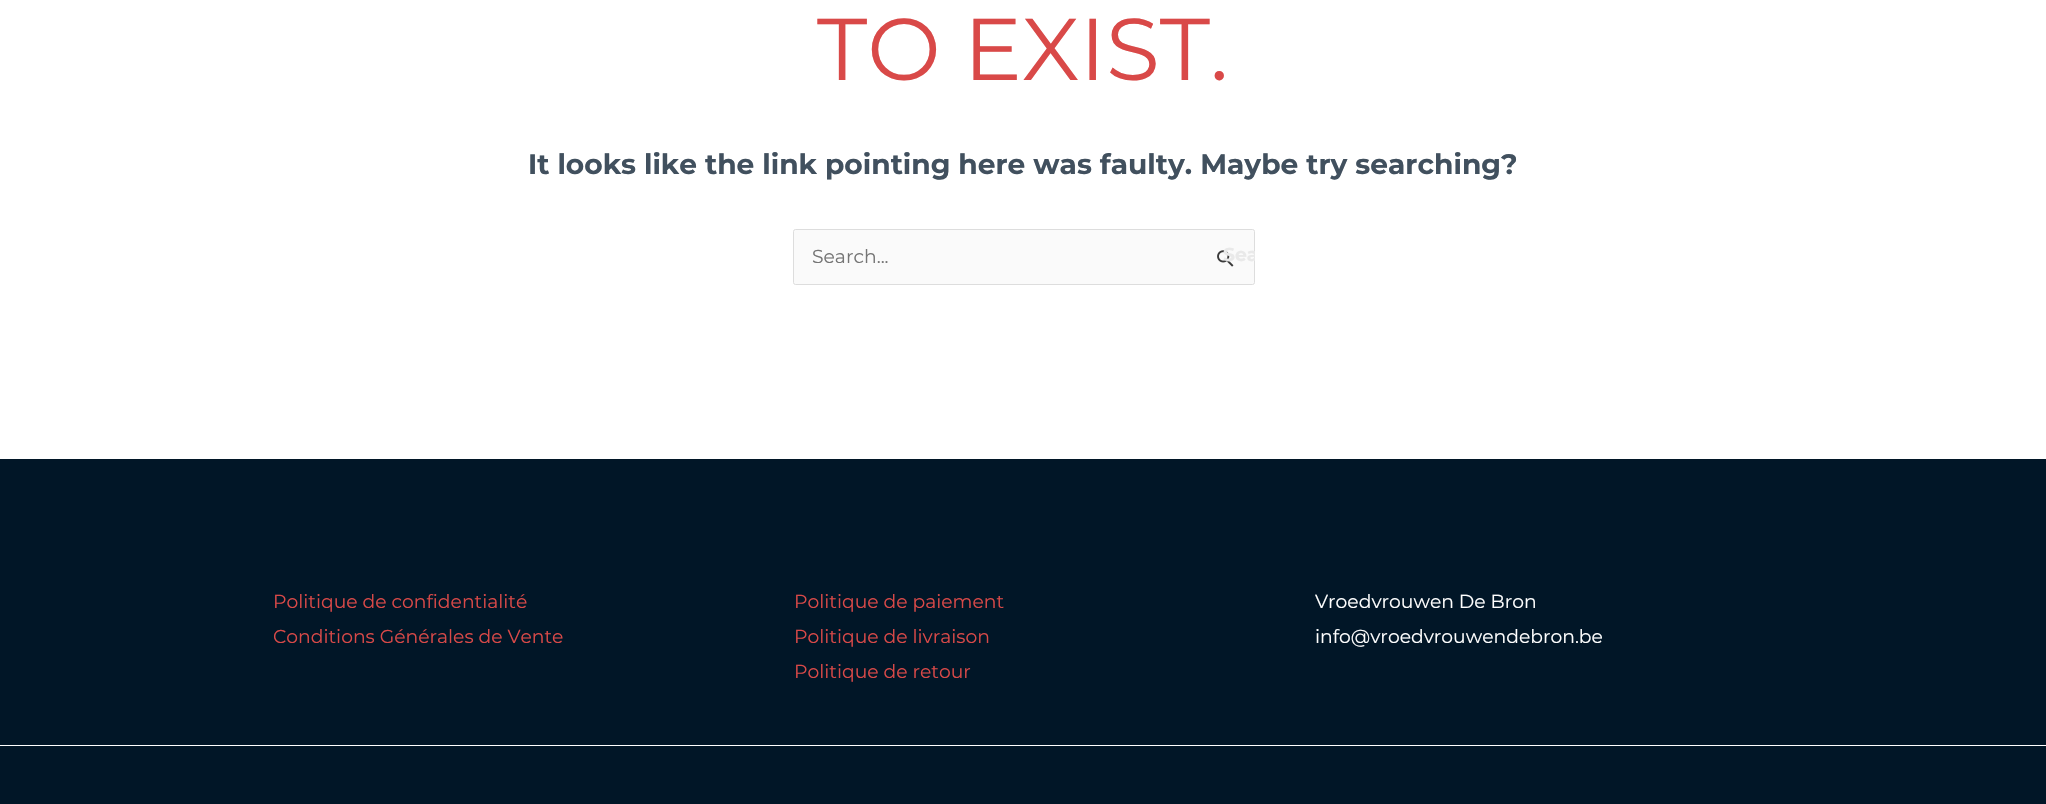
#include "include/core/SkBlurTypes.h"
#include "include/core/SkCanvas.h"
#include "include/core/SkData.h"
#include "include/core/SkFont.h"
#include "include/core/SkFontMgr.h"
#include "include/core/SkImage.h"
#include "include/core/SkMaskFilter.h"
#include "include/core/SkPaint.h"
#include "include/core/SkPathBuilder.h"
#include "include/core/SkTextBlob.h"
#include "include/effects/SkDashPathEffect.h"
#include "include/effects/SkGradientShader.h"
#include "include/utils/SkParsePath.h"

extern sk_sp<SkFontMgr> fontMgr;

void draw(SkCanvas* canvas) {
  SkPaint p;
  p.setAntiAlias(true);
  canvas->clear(SK_ColorWHITE);
  p.setColor(SkColorSetRGB(250, 250, 250));
  canvas->drawRoundRect(SkRect::MakeLTRB(793.5f, 229.5f, 1254.5f, 284.5f), 2, 2, p);
  p.setStyle(SkPaint::kStroke_Style);
  p.setStrokeWidth(1);
  p.setColor(SkColorSetRGB(221, 221, 221));
  canvas->drawRoundRect(SkRect::MakeLTRB(793.5f, 229.5f, 1254.5f, 284.5f), 2, 2, p);
  canvas->drawImageRect(SkImages::DeferredFromEncodedData(SkData::MakeFromFileName("images/1.png")), SkRect::MakeLTRB(1217, 250, 1234, 267), SkSamplingOptions());
  p.setStyle(SkPaint::kFill_Style);
  p.setColor(SkColorSetRGB(1, 22, 39));
  canvas->drawRect(SkRect::MakeLTRB(0, 746, 2046, 804), p);
  canvas->drawRect(SkRect::MakeLTRB(0, 459, 2046, 745), p);
  SkFont font1(fontMgr->matchFamilyStyle("Montserrat", SkFontStyle::Normal()), 87.5f);
  font1.setSubpixel(true);
  p.setColor(SkColorSetRGB(217, 73, 72));
  canvas->drawString("TO EXIST.", 817, 80, font1, p);
  SkFont font2(fontMgr->matchFamilyStyle("Montserrat", SkFontStyle::Bold()), 28.1f);
  font2.setSubpixel(true);
  p.setColor(SkColorSetRGB(65, 80, 94));
  canvas->drawString("It looks like the link pointing here was faulty. Maybe try searching?", 528, 174, font2, p);
  SkFont font3(fontMgr->matchFamilyStyle("Montserrat", SkFontStyle::Normal()), 18.75f);
  font3.setSubpixel(true);
  p.setColor(SkColorSetRGB(117, 117, 117));
  canvas->drawString("Search...", 812, 263, font3, p);
  canvas->save();
  canvas->clipPath(SkPathBuilder().moveTo(1201.5f, 229).lineTo(1252.5f, 229).cubicTo(1254, 229, 1255, 230, 1255, 231.5f).lineTo(1255, 277.5f).cubicTo(1255, 279, 1254, 280, 1252.5f, 280).lineTo(1201.5f, 280).cubicTo(1200, 280, 1199, 279, 1199, 277.5f).lineTo(1199, 231.5f).cubicTo(1199, 230, 1200, 229, 1201.5f, 229).close().detach(), true);
  SkFont font4(fontMgr->matchFamilyStyle("Montserrat", SkFontStyle::Bold()), 18.75f);
  font4.setSubpixel(true);
  p.setColor(SkColorSetRGB(233, 233, 233));
  canvas->drawString("Sea", 1223, 261, font4, p);
  canvas->restore();
  p.setColor(SkColorSetRGB(217, 73, 72));
  canvas->drawString("Politique de confidentialité", 273, 608, font3, p);
  canvas->drawString("Conditions Générales de Vente", 273, 643, font3, p);
  canvas->drawString("Politique de paiement", 794, 608, font3, p);
  canvas->drawString("Politique de livraison", 794, 643, font3, p);
  canvas->drawString("Politique de retour", 794, 678, font3, p);
  p.setColor(SK_ColorWHITE);
  canvas->drawString("Vroedvrouwen De Bron", 1315, 608, font3, p);
  canvas->drawString("info@vroedvrouwendebron.be", 1315, 643, font3, p);
}
